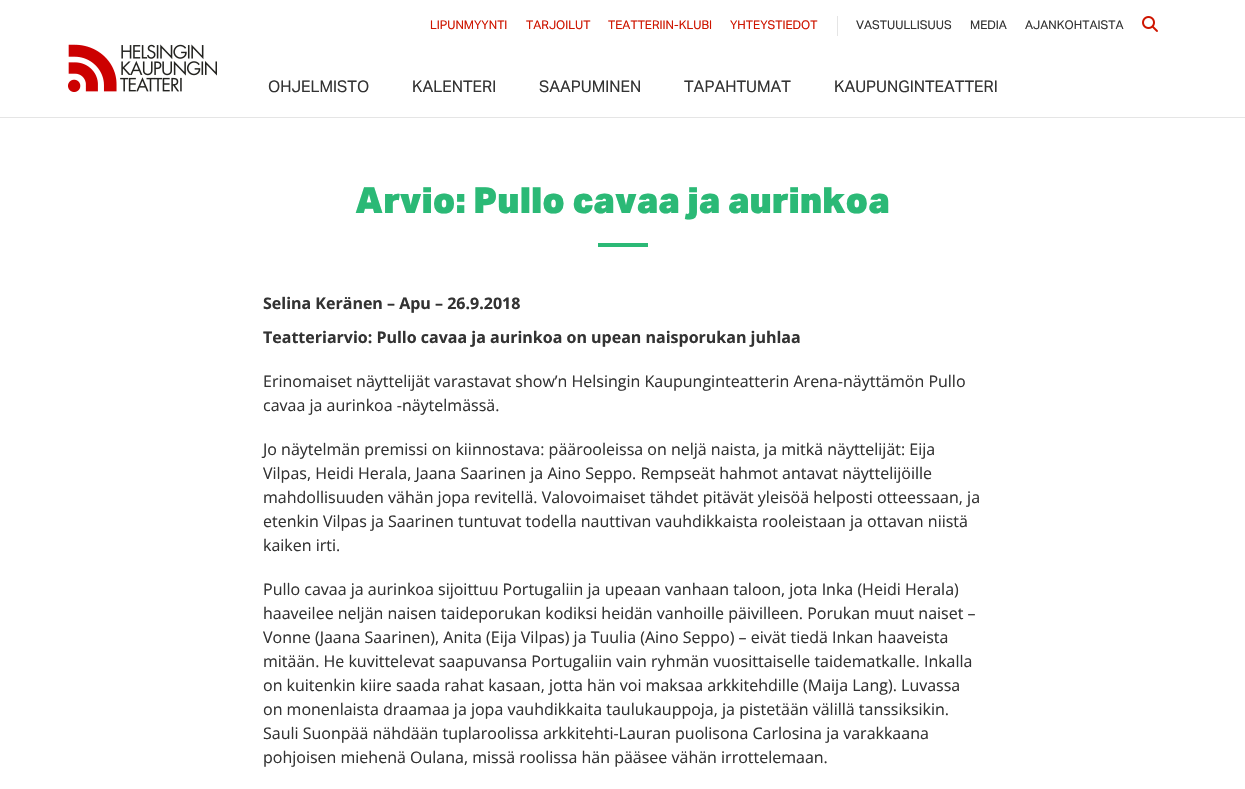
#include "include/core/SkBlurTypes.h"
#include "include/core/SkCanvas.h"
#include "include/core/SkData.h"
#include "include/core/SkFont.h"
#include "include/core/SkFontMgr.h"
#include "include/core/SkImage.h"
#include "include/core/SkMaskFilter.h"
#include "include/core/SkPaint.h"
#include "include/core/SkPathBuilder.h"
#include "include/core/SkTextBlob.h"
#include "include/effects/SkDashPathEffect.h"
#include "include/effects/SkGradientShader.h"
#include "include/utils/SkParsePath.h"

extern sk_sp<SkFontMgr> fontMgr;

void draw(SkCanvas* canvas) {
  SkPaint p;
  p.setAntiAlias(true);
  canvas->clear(SK_ColorWHITE);
  p.setColor(SkColorSetRGB(229, 229, 229));
  canvas->drawRect(SkRect::MakeLTRB(0, 117, 1245, 118), p);
  canvas->drawImageRect(SkImages::DeferredFromEncodedData(SkData::MakeFromFileName("images/1.png")), SkRect::MakeLTRB(68, 44, 217, 92), SkSamplingOptions());
  canvas->drawRect(SkRect::MakeLTRB(837, 16, 838, 36), p);
  canvas->drawImageRect(SkImages::DeferredFromEncodedData(SkData::MakeFromFileName("images/2.png")), SkRect::MakeLTRB(1142, 16, 1158, 32), SkSamplingOptions());
  p.setColor(SkColorSetRGB(43, 185, 118));
  canvas->drawRect(SkRect::MakeLTRB(598, 243, 648, 247), p);
  SkFont font1(fontMgr->matchFamilyStyle("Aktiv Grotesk", SkFontStyle::Normal()), 12);
  font1.setSubpixel(true);
  p.setColor(SkColorSetRGB(206, 21, 0));
  canvas->drawString("LIPUNMYYNTI", 430, 29, font1, p);
  canvas->drawString("TARJOILUT", 526, 29, font1, p);
  canvas->drawString("TEATTERIIN-KLUBI", 608, 29, font1, p);
  canvas->drawString("YHTEYSTIEDOT", 730, 29, font1, p);
  p.setColor(SkColorSetRGB(51, 51, 51));
  canvas->drawString("VASTUULLISUUS", 856, 29, font1, p);
  canvas->drawString("MEDIA", 970, 29, font1, p);
  canvas->drawString("AJANKOHTAISTA", 1025, 29, font1, p);
  SkFont font2(fontMgr->matchFamilyStyle("Aktiv Grotesk", SkFontStyle::Normal()), 16);
  font2.setSubpixel(true);
  canvas->drawString("OHJELMISTO", 268, 92, font2, p);
  canvas->drawString("KALENTERI", 412, 92, font2, p);
  canvas->drawString("SAAPUMINEN", 539, 92, font2, p);
  canvas->drawString("TAPAHTUMAT", 684, 92, font2, p);
  canvas->drawString("KAUPUNGINTEATTERI", 834, 92, font2, p);
  SkFont font3(fontMgr->matchFamilyStyle("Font", SkFontStyle(900, SkFontStyle::kNormal_Width, SkFontStyle::kUpright_Slant)), 36);
  font3.setSubpixel(true);
  p.setColor(SkColorSetRGB(43, 185, 118));
  canvas->drawString("Arvio: Pullo cavaa ja aurinkoa", 355, 213, font3, p);
  SkFont font4(fontMgr->matchFamilyStyle("Open Sans", SkFontStyle::Bold()), 16);
  font4.setSubpixel(true);
  p.setColor(SkColorSetRGB(51, 51, 51));
  canvas->drawString("Selina Keränen – Apu – 26.9.2018", 263, 309, font4, p);
  canvas->drawString("Teatteriarvio: Pullo cavaa ja aurinkoa on upean naisporukan juhlaa", 263, 343, font4, p);
  SkFont font5(fontMgr->matchFamilyStyle("Open Sans", SkFontStyle::Normal()), 16);
  font5.setSubpixel(true);
  canvas->drawString("Erinomaiset näyttelijät varastavat show’n Helsingin Kaupunginteatterin Arena-näyttämön Pullo", 263, 387, font5, p);
  canvas->drawString("cavaa ja aurinkoa -näytelmässä.", 263, 411, font5, p);
  canvas->drawString("Jo näytelmän premissi on kiinnostava: päärooleissa on neljä naista, ja mitkä näyttelijät: Eija", 263, 455, font5, p);
  canvas->drawString("Vilpas, Heidi Herala, Jaana Saarinen ja Aino Seppo. Rempseät hahmot antavat näyttelijöille", 263, 479, font5, p);
  canvas->drawString("mahdollisuuden vähän jopa revitellä. Valovoimaiset tähdet pitävät yleisöä helposti otteessaan, ja", 263, 503, font5, p);
  canvas->drawString("etenkin Vilpas ja Saarinen tuntuvat todella nauttivan vauhdikkaista rooleistaan ja ottavan niistä", 263, 527, font5, p);
  canvas->drawString("kaiken irti.", 263, 551, font5, p);
  canvas->drawString("Pullo cavaa ja aurinkoa sijoittuu Portugaliin ja upeaan vanhaan taloon, jota Inka (Heidi Herala)", 263, 595, font5, p);
  canvas->drawString("haaveilee neljän naisen taideporukan kodiksi heidän vanhoille päivilleen. Porukan muut naiset –", 263, 619, font5, p);
  canvas->drawString("Vonne (Jaana Saarinen), Anita (Eija Vilpas) ja Tuulia (Aino Seppo) – eivät tiedä Inkan haaveista", 263, 643, font5, p);
  canvas->drawString("mitään. He kuvittelevat saapuvansa Portugaliin vain ryhmän vuosittaiselle taidematkalle. Inkalla", 263, 667, font5, p);
  canvas->drawString("on kuitenkin kiire saada rahat kasaan, jotta hän voi maksaa arkkitehdille (Maija Lang). Luvassa", 263, 691, font5, p);
  canvas->drawString("on monenlaista draamaa ja jopa vauhdikkaita taulukauppoja, ja pistetään välillä tanssiksikin.", 263, 715, font5, p);
  canvas->drawString("Sauli Suonpää nähdään tuplaroolissa arkkitehti-Lauran puolisona Carlosina ja varakkaana", 263, 739, font5, p);
  canvas->drawString("pohjoisen miehenä Oulana, missä roolissa hän pääsee vähän irrottelemaan.", 263, 763, font5, p);
}
